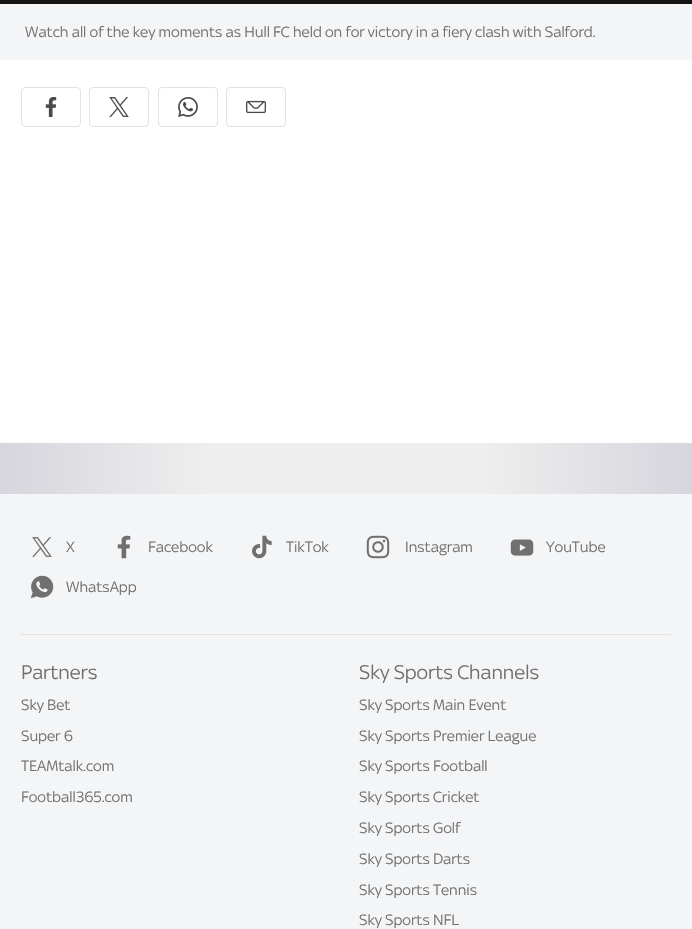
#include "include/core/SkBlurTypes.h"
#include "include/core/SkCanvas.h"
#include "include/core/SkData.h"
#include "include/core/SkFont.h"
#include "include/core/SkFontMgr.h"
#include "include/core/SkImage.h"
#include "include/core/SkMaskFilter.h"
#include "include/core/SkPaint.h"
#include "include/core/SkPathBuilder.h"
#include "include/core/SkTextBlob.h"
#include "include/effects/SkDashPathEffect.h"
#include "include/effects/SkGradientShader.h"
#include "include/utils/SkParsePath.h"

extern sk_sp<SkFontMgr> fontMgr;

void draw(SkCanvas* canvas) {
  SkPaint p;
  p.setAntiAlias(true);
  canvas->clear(SK_ColorWHITE);
  {
    const SkColor colors[] = {SkColorSetRGB(215, 213, 221), SkColorSetRGB(238, 238, 238), SkColorSetRGB(238, 238, 238), SkColorSetRGB(215, 213, 221)};
    const float stops[] = {0, 0.3f, 0.7f, 1};
    const SkPoint ends[] = {{0, 406}, {692, 406}};
    p.setShader(SkGradientShader::MakeLinear(ends, colors, stops, 4, SkTileMode::kClamp));
    p.setAlpha(255);
  }
  canvas->drawRect(SkRect::MakeLTRB(0, 443, 692, 494), p);
  p.setShader(nullptr);
  p.setColor(SkColorSetRGB(20, 20, 20));
  canvas->drawRect(SkRect::MakeLTRB(0, 0, 692, 4), p);
  p.setColor(SkColorSetRGB(244, 245, 247));
  canvas->drawRect(SkRect::MakeLTRB(0, 4, 692, 60), p);
  p.setStyle(SkPaint::kStroke_Style);
  p.setStrokeWidth(1);
  p.setColor(SkColorSetRGB(226, 226, 226));
  canvas->drawRoundRect(SkRect::MakeLTRB(21.5f, 87.5f, 80.5f, 126.5f), 3.5f, 3.5f, p);
  canvas->drawImageRect(SkImages::DeferredFromEncodedData(SkData::MakeFromFileName("images/1.png")), SkRect::MakeLTRB(45, 97, 57, 117), SkSamplingOptions());
  canvas->drawRoundRect(SkRect::MakeLTRB(89.5f, 87.5f, 148.5f, 126.5f), 3.5f, 3.5f, p);
  canvas->drawImageRect(SkImages::DeferredFromEncodedData(SkData::MakeFromFileName("images/2.png")), SkRect::MakeLTRB(109, 97, 129, 117), SkSamplingOptions());
  canvas->drawRoundRect(SkRect::MakeLTRB(158.5f, 87.5f, 217.5f, 126.5f), 3.5f, 3.5f, p);
  canvas->drawImageRect(SkImages::DeferredFromEncodedData(SkData::MakeFromFileName("images/3.png")), SkRect::MakeLTRB(178, 97, 198, 117), SkSamplingOptions());
  canvas->drawRoundRect(SkRect::MakeLTRB(226.5f, 87.5f, 285.5f, 126.5f), 3.5f, 3.5f, p);
  canvas->drawImageRect(SkImages::DeferredFromEncodedData(SkData::MakeFromFileName("images/4.png")), SkRect::MakeLTRB(246, 100, 266, 114), SkSamplingOptions());
  p.setStyle(SkPaint::kFill_Style);
  p.setColor(SkColorSetRGB(244, 245, 247));
  canvas->drawRect(SkRect::MakeLTRB(0, 494, 692, 929), p);
  p.setColor(SkColorSetRGB(226, 226, 226));
  canvas->drawRect(SkRect::MakeLTRB(21, 634, 671, 635), p);
  canvas->drawImageRect(SkImages::DeferredFromEncodedData(SkData::MakeFromFileName("images/5.png")), SkRect::MakeLTRB(32, 537, 52, 557), SkSamplingOptions());
  canvas->drawImageRect(SkImages::DeferredFromEncodedData(SkData::MakeFromFileName("images/6.png")), SkRect::MakeLTRB(117, 535, 131, 559), SkSamplingOptions());
  canvas->drawImageRect(SkImages::DeferredFromEncodedData(SkData::MakeFromFileName("images/7.png")), SkRect::MakeLTRB(252, 535, 272, 559), SkSamplingOptions());
  canvas->drawImageRect(SkImages::DeferredFromEncodedData(SkData::MakeFromFileName("images/8.png")), SkRect::MakeLTRB(366, 535, 390, 559), SkSamplingOptions());
  canvas->drawImageRect(SkImages::DeferredFromEncodedData(SkData::MakeFromFileName("images/9.png")), SkRect::MakeLTRB(510, 539, 534, 556), SkSamplingOptions());
  canvas->drawImageRect(SkImages::DeferredFromEncodedData(SkData::MakeFromFileName("images/10.png")), SkRect::MakeLTRB(30, 575, 54, 599), SkSamplingOptions());
  SkFont font1(fontMgr->matchFamilyStyle("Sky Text", SkFontStyle::Normal()), 16);
  font1.setSubpixel(true);
  p.setColor(SkColorSetRGB(112, 112, 112));
  canvas->drawString("Watch all of the key moments as Hull FC held on for victory in a fiery clash with Salford.", 25, 37, font1, p);
  canvas->drawString("X", 66, 552, font1, p);
  canvas->drawString("Facebook", 148, 552, font1, p);
  canvas->drawString("TikTok", 286, 552, font1, p);
  canvas->drawString("Instagram", 405, 552, font1, p);
  canvas->drawString("YouTube", 546, 552, font1, p);
  canvas->drawString("WhatsApp", 66, 592, font1, p);
  SkFont font2(fontMgr->matchFamilyStyle("Sky Text", SkFontStyle::Normal()), 21.25f);
  font2.setSubpixel(true);
  canvas->drawString("Partners", 21, 679, font2, p);
  canvas->drawString("Sky Bet", 21, 710, font1, p);
  canvas->drawString("Super 6", 21, 741, font1, p);
  canvas->drawString("TEAMtalk.com", 21, 771, font1, p);
  canvas->drawString("Football365.com", 21, 802, font1, p);
  canvas->drawString("Sky Sports Channels", 359, 679, font2, p);
  canvas->drawString("Sky Sports Main Event", 359, 710, font1, p);
  canvas->drawString("Sky Sports Premier League", 359, 741, font1, p);
  canvas->drawString("Sky Sports Football", 359, 771, font1, p);
  canvas->drawString("Sky Sports Cricket", 359, 802, font1, p);
  canvas->drawString("Sky Sports Golf", 359, 833, font1, p);
  canvas->drawString("Sky Sports Darts", 359, 864, font1, p);
  canvas->drawString("Sky Sports Tennis", 359, 895, font1, p);
  canvas->drawString("Sky Sports NFL", 359, 925, font1, p);
}
